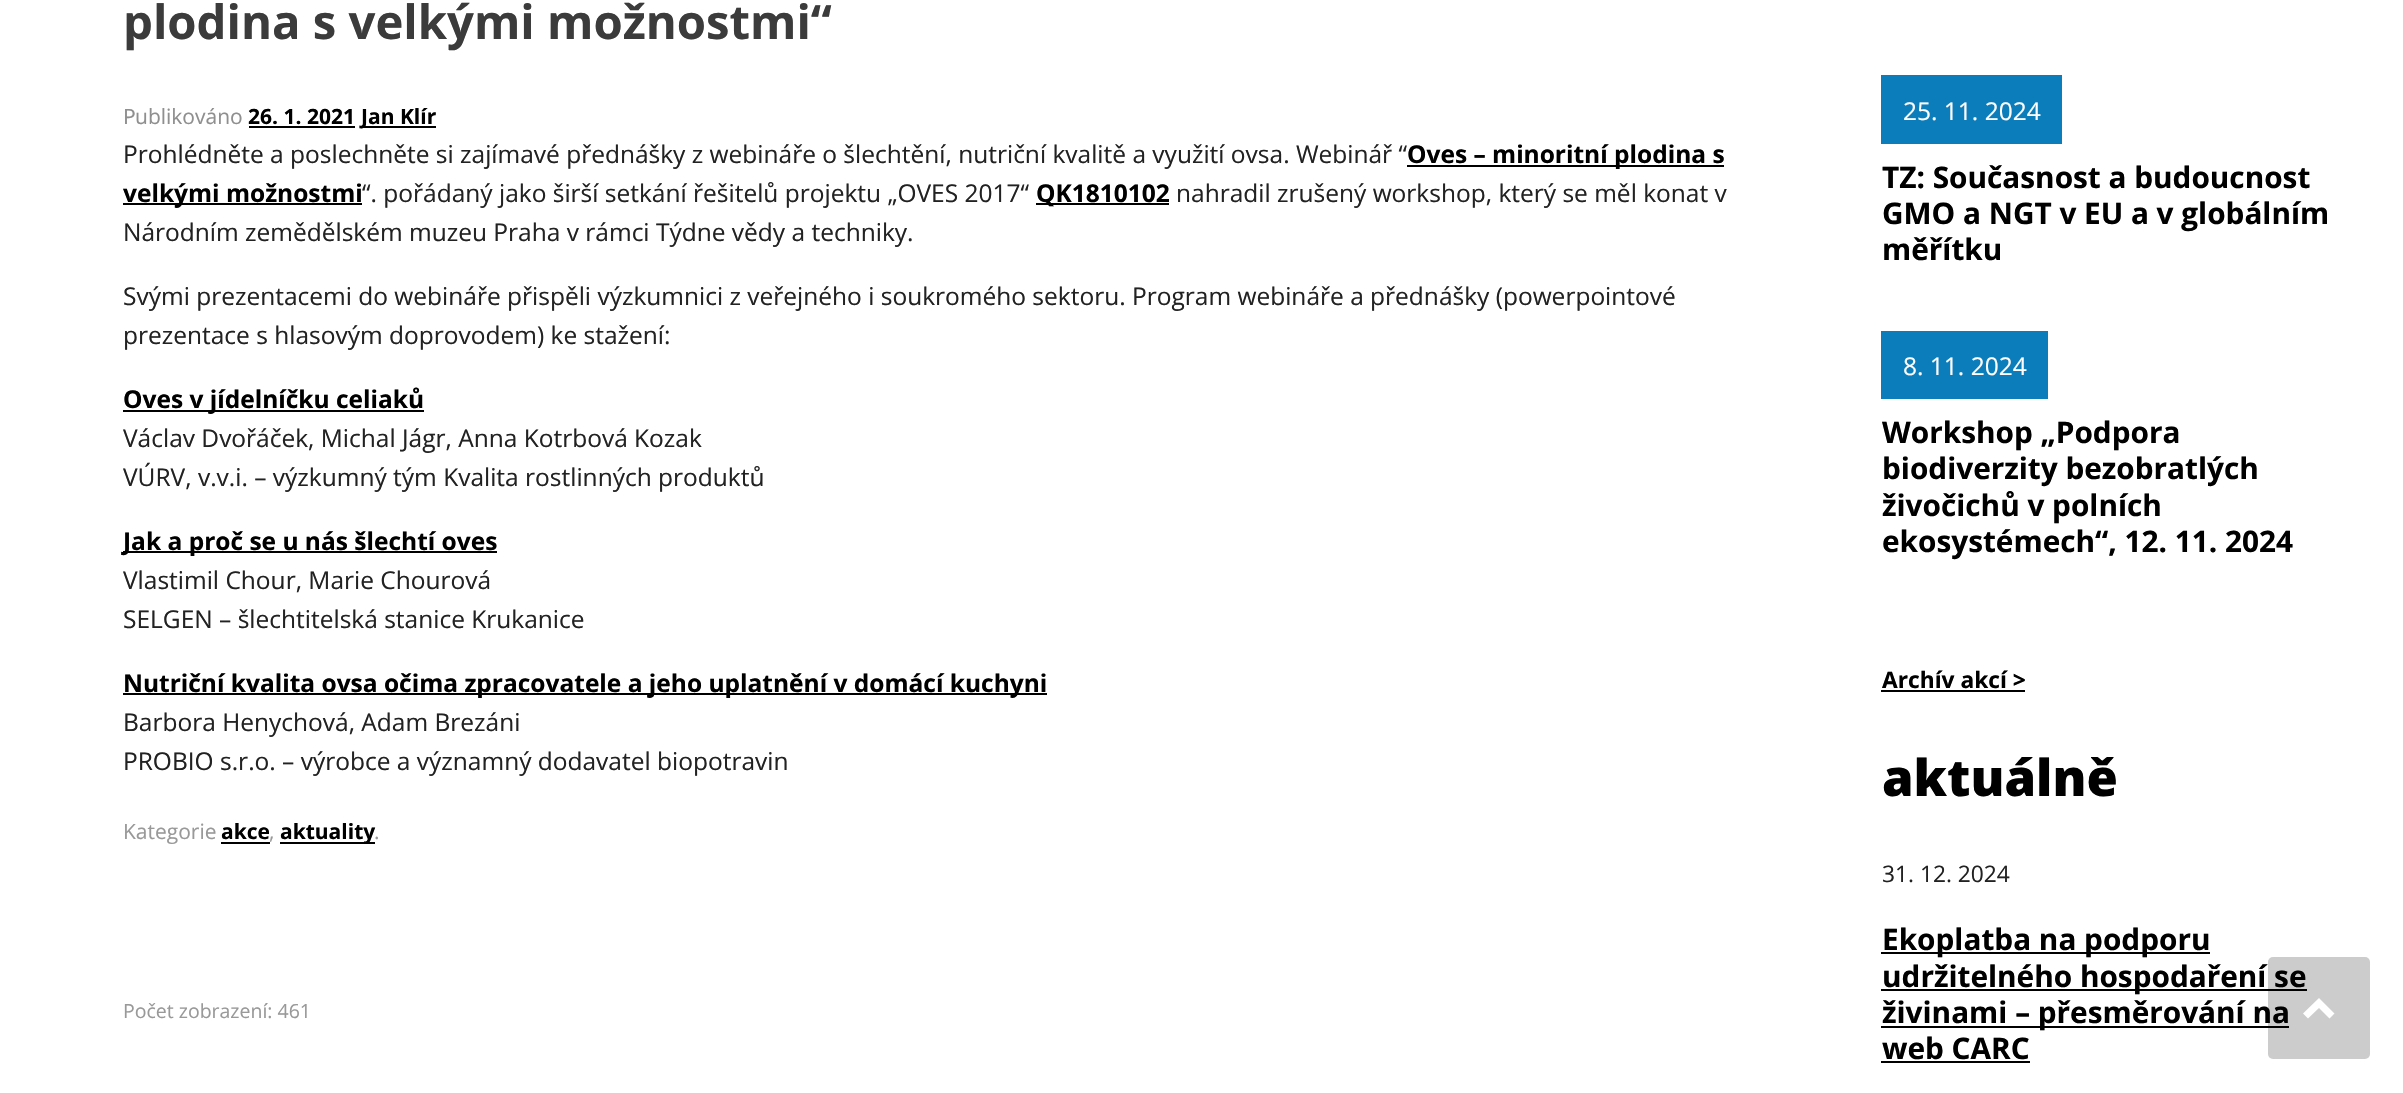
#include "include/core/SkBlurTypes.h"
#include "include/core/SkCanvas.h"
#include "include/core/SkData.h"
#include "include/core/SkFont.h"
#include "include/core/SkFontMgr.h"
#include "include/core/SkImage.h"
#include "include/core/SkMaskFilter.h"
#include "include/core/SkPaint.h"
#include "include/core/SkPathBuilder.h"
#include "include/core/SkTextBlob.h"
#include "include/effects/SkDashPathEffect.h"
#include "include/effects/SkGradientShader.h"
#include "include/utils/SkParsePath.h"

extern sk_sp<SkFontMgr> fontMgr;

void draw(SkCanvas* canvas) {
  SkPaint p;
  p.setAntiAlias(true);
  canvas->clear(SK_ColorWHITE);
  p.setColor(SK_ColorBLACK);
  canvas->drawRect(SkRect::MakeLTRB(249, 126, 355, 128), p);
  canvas->drawRect(SkRect::MakeLTRB(361, 126, 436, 128), p);
  canvas->drawRect(SkRect::MakeLTRB(1407, 165, 1724, 167), p);
  canvas->drawRect(SkRect::MakeLTRB(123, 203, 362, 205), p);
  canvas->drawRect(SkRect::MakeLTRB(1036, 203, 1169, 205), p);
  canvas->drawRect(SkRect::MakeLTRB(123, 410, 424, 412), p);
  canvas->drawRect(SkRect::MakeLTRB(123, 551, 497, 553), p);
  canvas->drawRect(SkRect::MakeLTRB(123, 693, 1047, 695), p);
  canvas->drawRect(SkRect::MakeLTRB(221, 842, 270, 844), p);
  canvas->drawRect(SkRect::MakeLTRB(280, 842, 375, 844), p);
  p.setColor(SkColorSetRGB(12, 125, 187));
  canvas->drawRect(SkRect::MakeLTRB(1881, 75, 2062, 144), p);
  canvas->drawRect(SkRect::MakeLTRB(1881, 331, 2048, 399), p);
  p.setColor(SK_ColorBLACK);
  canvas->drawRect(SkRect::MakeLTRB(1881, 690, 2025, 692), p);
  canvas->drawRect(SkRect::MakeLTRB(1881, 952, 2210, 954), p);
  canvas->drawRect(SkRect::MakeLTRB(1881, 989, 2307, 991), p);
  canvas->drawRect(SkRect::MakeLTRB(1881, 1026, 2289, 1028), p);
  canvas->drawRect(SkRect::MakeLTRB(1881, 1061, 2030, 1063), p);
  SkFont font1(fontMgr->matchFamilyStyle("Open Sans", SkFontStyle::Bold()), 47.25f);
  font1.setSubpixel(true);
  p.setColor(SkColorSetRGB(59, 59, 59));
  canvas->drawString("plodina s velkými možnostmi“", 123, 39, font1, p);
  SkFont font2(fontMgr->matchFamilyStyle("Noto Sans", SkFontStyle::Normal()), 21);
  font2.setSubpixel(true);
  p.setColor(SkColorSetRGB(143, 143, 143));
  canvas->drawString("P", 123, 124, font2, p);
  SkFont font3(fontMgr->matchFamilyStyle("Open Sans", SkFontStyle::Normal()), 21);
  font3.setSubpixel(true);
  canvas->drawString("ublikováno", 135, 124, font3, p);
  SkFont font4(fontMgr->matchFamilyStyle("Open Sans", SkFontStyle::Bold()), 21);
  font4.setSubpixel(true);
  p.setColor(SK_ColorBLACK);
  canvas->drawString("26. 1. 2021", 248, 124, font4, p);
  canvas->drawString("Jan Klír", 361, 124, font4, p);
  SkFont font5(fontMgr->matchFamilyStyle("Open Sans", SkFontStyle::Normal()), 24.5f);
  font5.setSubpixel(true);
  p.setColor(SkColorSetRGB(34, 34, 34));
  canvas->drawString("Prohlédněte a poslechněte si zajímavé přednášky z webináře o šlechtění, nutriční kvalitě a využití ovsa. Webinář “", 123, 163, font5, p);
  SkFont font6(fontMgr->matchFamilyStyle("Open Sans", SkFontStyle::Bold()), 24.5f);
  font6.setSubpixel(true);
  p.setColor(SK_ColorBLACK);
  canvas->drawString("Oves – minoritní plodina s", 1407, 163, font6, p);
  canvas->drawString("velkými možnostmi", 123, 202, font6, p);
  p.setColor(SkColorSetRGB(34, 34, 34));
  canvas->drawString("“. pořádaný jako širší setkání řešitelů projektu „OVES 2017“", 362, 202, font5, p);
  p.setColor(SK_ColorBLACK);
  canvas->drawString("QK1810102", 1036, 202, font6, p);
  p.setColor(SkColorSetRGB(34, 34, 34));
  canvas->drawString("nahradil zrušený workshop, který se měl konat v", 1176, 202, font5, p);
  canvas->drawString("Národním zemědělském muzeu Praha v rámci Týdne vědy a techniky.", 123, 241, font5, p);
  canvas->drawString("Svými prezentacemi do webináře přispěli výzkumnici z veřejného i soukromého sektoru. Program webináře a přednášky (powerpointové", 123, 305, font5, p);
  canvas->drawString("prezentace s hlasovým doprovodem) ke stažení:", 123, 344, font5, p);
  p.setColor(SK_ColorBLACK);
  canvas->drawString("Oves v jídelníčku celiaků", 123, 408, font6, p);
  p.setColor(SkColorSetRGB(34, 34, 34));
  canvas->drawString("Václav Dvořáček, Michal Jágr, Anna Kotrbová Kozak", 123, 447, font5, p);
  canvas->drawString("VÚRV, v.v.i. – výzkumný tým Kvalita rostlinných produktů", 123, 486, font5, p);
  p.setColor(SK_ColorBLACK);
  canvas->drawString("Jak a proč se u nás šlechtí oves", 123, 550, font6, p);
  p.setColor(SkColorSetRGB(34, 34, 34));
  canvas->drawString("Vlastimil Chour, Marie Chourová", 123, 589, font5, p);
  canvas->drawString("SELGEN – šlechtitelská stanice Krukanice", 123, 628, font5, p);
  p.setColor(SK_ColorBLACK);
  canvas->drawString("Nutriční kvalita ovsa očima zpracovatele a jeho uplatnění v domácí kuchyni", 123, 692, font6, p);
  p.setColor(SkColorSetRGB(34, 34, 34));
  canvas->drawString("Barbora Henychová, Adam Brezáni", 123, 731, font5, p);
  canvas->drawString("PROBIO s.r.o. – výrobce a významný dodavatel biopotravin", 123, 770, font5, p);
  p.setColor(SkColorSetRGB(153, 153, 153));
  canvas->drawString("Kategorie", 123, 839, font3, p);
  p.setColor(SK_ColorBLACK);
  canvas->drawString("akce", 221, 839, font4, p);
  p.setColor(SkColorSetRGB(153, 153, 153));
  canvas->drawString(",", 269, 839, font3, p);
  p.setColor(SK_ColorBLACK);
  canvas->drawString("aktuality", 280, 839, font4, p);
  p.setColor(SkColorSetRGB(153, 153, 153));
  canvas->drawString(".", 374, 839, font3, p);
  SkFont font7(fontMgr->matchFamilyStyle("Open Sans", SkFontStyle::Normal()), 19.5f);
  font7.setSubpixel(true);
  canvas->drawString("Počet zobrazení: 461", 123, 1018, font7, p);
  p.setColor(SK_ColorWHITE);
  canvas->drawString("25. 11. 2024", 1903, 120, font5, p);
  SkFont font8(fontMgr->matchFamilyStyle("Open Sans", SkFontStyle::Bold()), 29.75f);
  font8.setSubpixel(true);
  p.setColor(SK_ColorBLACK);
  canvas->drawString("TZ: Současnost a budoucnost", 1882, 188, font8, p);
  canvas->drawString("GMO a NGT v EU a v globálním", 1882, 224, font8, p);
  canvas->drawString("měřítku", 1882, 260, font8, p);
  p.setColor(SK_ColorWHITE);
  canvas->drawString("8. 11. 2024", 1903, 375, font5, p);
  p.setColor(SK_ColorBLACK);
  canvas->drawString("Workshop „Podpora", 1882, 443, font8, p);
  canvas->drawString("biodiverzity bezobratlých", 1882, 479, font8, p);
  canvas->drawString("živočichů v polních", 1882, 516, font8, p);
  canvas->drawString("ekosystémech“, 12. 11. 2024", 1882, 552, font8, p);
  SkFont font9(fontMgr->matchFamilyStyle("Open Sans", SkFontStyle::Bold()), 22.75f);
  font9.setSubpixel(true);
  canvas->drawString("Archív akcí >", 1882, 688, font9, p);
  SkFont font10(fontMgr->matchFamilyStyle("Open Sans", SkFontStyle(800, SkFontStyle::kNormal_Width, SkFontStyle::kUpright_Slant)), 50.75f);
  font10.setSubpixel(true);
  canvas->drawString("aktuálně", 1882, 796, font10, p);
  SkFont font11(fontMgr->matchFamilyStyle("Open Sans", SkFontStyle::Normal()), 22.75f);
  font11.setSubpixel(true);
  p.setColor(SkColorSetRGB(34, 34, 34));
  canvas->drawString("31. 12. 2024", 1882, 882, font11, p);
  p.setColor(SK_ColorBLACK);
  canvas->drawString("Ekoplatba na podporu", 1882, 950, font8, p);
  canvas->drawString("udržitelného hospodaření se", 1882, 987, font8, p);
  canvas->drawString("živinami – přesměrování na", 1882, 1023, font8, p);
  canvas->drawString("web CARC", 1882, 1059, font8, p);
  p.setColor(SkColorSetARGB(51, 0, 0, 0));
  canvas->drawRoundRect(SkRect::MakeLTRB(2268, 957, 2370, 1059), 5, 5, p);
  p.setColor(SK_ColorWHITE);
  canvas->drawPath(SkPathBuilder().moveTo(2334.5f, 1013.5f).lineTo(2319, 998).lineTo(2303, 1013.5f).lineTo(2308, 1018.5f).lineTo(2319, 1008).lineTo(2329.5f, 1018.5f).close().detach(), p);
}
